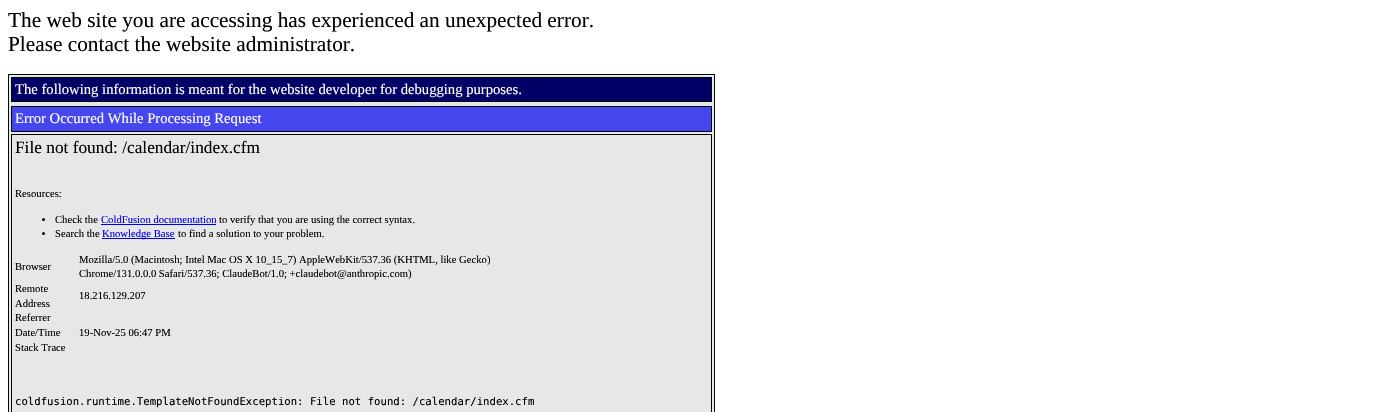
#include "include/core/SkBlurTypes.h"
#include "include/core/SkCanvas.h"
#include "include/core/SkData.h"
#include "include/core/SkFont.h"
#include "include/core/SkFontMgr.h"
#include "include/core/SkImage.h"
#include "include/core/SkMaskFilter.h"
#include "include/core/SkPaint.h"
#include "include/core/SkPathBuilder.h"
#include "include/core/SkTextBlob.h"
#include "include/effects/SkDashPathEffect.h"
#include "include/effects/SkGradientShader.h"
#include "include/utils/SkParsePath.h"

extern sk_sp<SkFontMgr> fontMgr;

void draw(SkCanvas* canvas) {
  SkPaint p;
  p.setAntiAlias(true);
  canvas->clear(SK_ColorWHITE);
  p.setColor(SkColorSetRGB(231, 231, 231));
  canvas->drawRect(SkRect::MakeLTRB(8.5f, 74.5f, 714.5f, 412.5f), p);
  p.setStyle(SkPaint::kStroke_Style);
  p.setStrokeWidth(1);
  p.setColor(SkColorSetRGB(0, 8, 8));
  canvas->drawRect(SkRect::MakeLTRB(8.5f, 74.5f, 714.5f, 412.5f), p);
  p.setStyle(SkPaint::kFill_Style);
  p.setColor(SkColorSetRGB(0, 0, 102));
  canvas->drawRect(SkRect::MakeLTRB(11.5f, 77.5f, 711.5f, 101.5f), p);
  p.setStyle(SkPaint::kStroke_Style);
  p.setColor(SkColorSetRGB(0, 8, 8));
  canvas->drawRect(SkRect::MakeLTRB(11.5f, 77.5f, 711.5f, 101.5f), p);
  p.setStyle(SkPaint::kFill_Style);
  p.setColor(SkColorSetRGB(70, 70, 238));
  canvas->drawRect(SkRect::MakeLTRB(11.5f, 106.5f, 711.5f, 131.5f), p);
  p.setStyle(SkPaint::kStroke_Style);
  p.setColor(SkColorSetRGB(0, 8, 8));
  canvas->drawRect(SkRect::MakeLTRB(11.5f, 106.5f, 711.5f, 131.5f), p);
  canvas->drawRect(SkRect::MakeLTRB(11.5f, 134.5f, 711.5f, 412.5f), p);
  p.setStyle(SkPaint::kFill_Style);
  p.setColor(SK_ColorBLACK);
  canvas->drawCircle(43.5f, 219.5f, 1.5f, p);
  p.setColor(SkColorSetRGB(0, 0, 238));
  canvas->drawRect(SkRect::MakeLTRB(101, 224, 216, 225), p);
  p.setColor(SK_ColorBLACK);
  canvas->drawCircle(43.5f, 233.5f, 1.5f, p);
  p.setColor(SkColorSetRGB(0, 0, 238));
  canvas->drawRect(SkRect::MakeLTRB(102, 238, 175, 239), p);
  SkFont font1(fontMgr->matchFamilyStyle("Liberation Serif", SkFontStyle::Normal()), 21.3f);
  font1.setSubpixel(true);
  p.setColor(SK_ColorBLACK);
  canvas->drawString("The web site you are accessing has experienced an unexpected error.", 8, 27, font1, p);
  canvas->drawString("Please contact the website administrator.", 8, 51, font1, p);
  SkFont font2(fontMgr->matchFamilyStyle("Liberation Serif", SkFontStyle::Normal()), 14.65f);
  font2.setSubpixel(true);
  p.setColor(SK_ColorWHITE);
  canvas->drawString("The following information is meant for the website developer for debugging purposes.", 15, 94, font2, p);
  canvas->drawString("Error Occurred While Processing Request", 15, 123, font2, p);
  SkFont font3(fontMgr->matchFamilyStyle("Liberation Serif", SkFontStyle::Normal()), 17.3f);
  font3.setSubpixel(true);
  p.setColor(SK_ColorBLACK);
  canvas->drawString("File not found: /calendar/index.cfm", 15, 153, font3, p);
  SkFont font4(fontMgr->matchFamilyStyle("Liberation Serif", SkFontStyle::Normal()), 10.65f);
  font4.setSubpixel(true);
  canvas->drawString("Resources:", 15, 197, font4, p);
  canvas->drawString("Check the", 55, 223, font4, p);
  p.setColor(SkColorSetRGB(0, 0, 238));
  canvas->drawString("ColdFusion documentation", 101, 223, font4, p);
  p.setColor(SK_ColorBLACK);
  canvas->drawString("to verify that you are using the correct syntax.", 219, 223, font4, p);
  canvas->drawString("Search the", 55, 237, font4, p);
  p.setColor(SkColorSetRGB(0, 0, 238));
  canvas->drawString("Knowledge Base", 102, 237, font4, p);
  p.setColor(SK_ColorBLACK);
  canvas->drawString("to find a solution to your problem.", 178, 237, font4, p);
  canvas->drawString("Browser", 15, 270, font4, p);
  canvas->drawString("Mozilla/5.0 (Macintosh; Intel Mac OS X 10_15_7) AppleWebKit/537.36 (KHTML, like Gecko)", 79, 263, font4, p);
  canvas->drawString("Chrome/131.0.0.0 Safari/537.36; ClaudeBot/1.0; +claudebot@anthropic.com)", 79, 277, font4, p);
  canvas->drawString("Remote", 15, 292, font4, p);
  canvas->drawString("Address", 15, 307, font4, p);
  canvas->drawString("18.216.129.207", 79, 299, font4, p);
  canvas->drawString("Referrer", 15, 321, font4, p);
  canvas->drawString("Date/Time", 15, 336, font4, p);
  canvas->drawString("19-Nov-25 06:47 PM", 79, 336, font4, p);
  canvas->drawString("Stack Trace", 15, 351, font4, p);
  SkFont font5(fontMgr->matchFamilyStyle("DejaVu Sans Mono", SkFontStyle::Normal()), 10.65f);
  font5.setSubpixel(true);
  canvas->drawString("coldfusion.runtime.TemplateNotFoundException: File not found: /calendar/index.cfm", 15, 405, font5, p);
}
